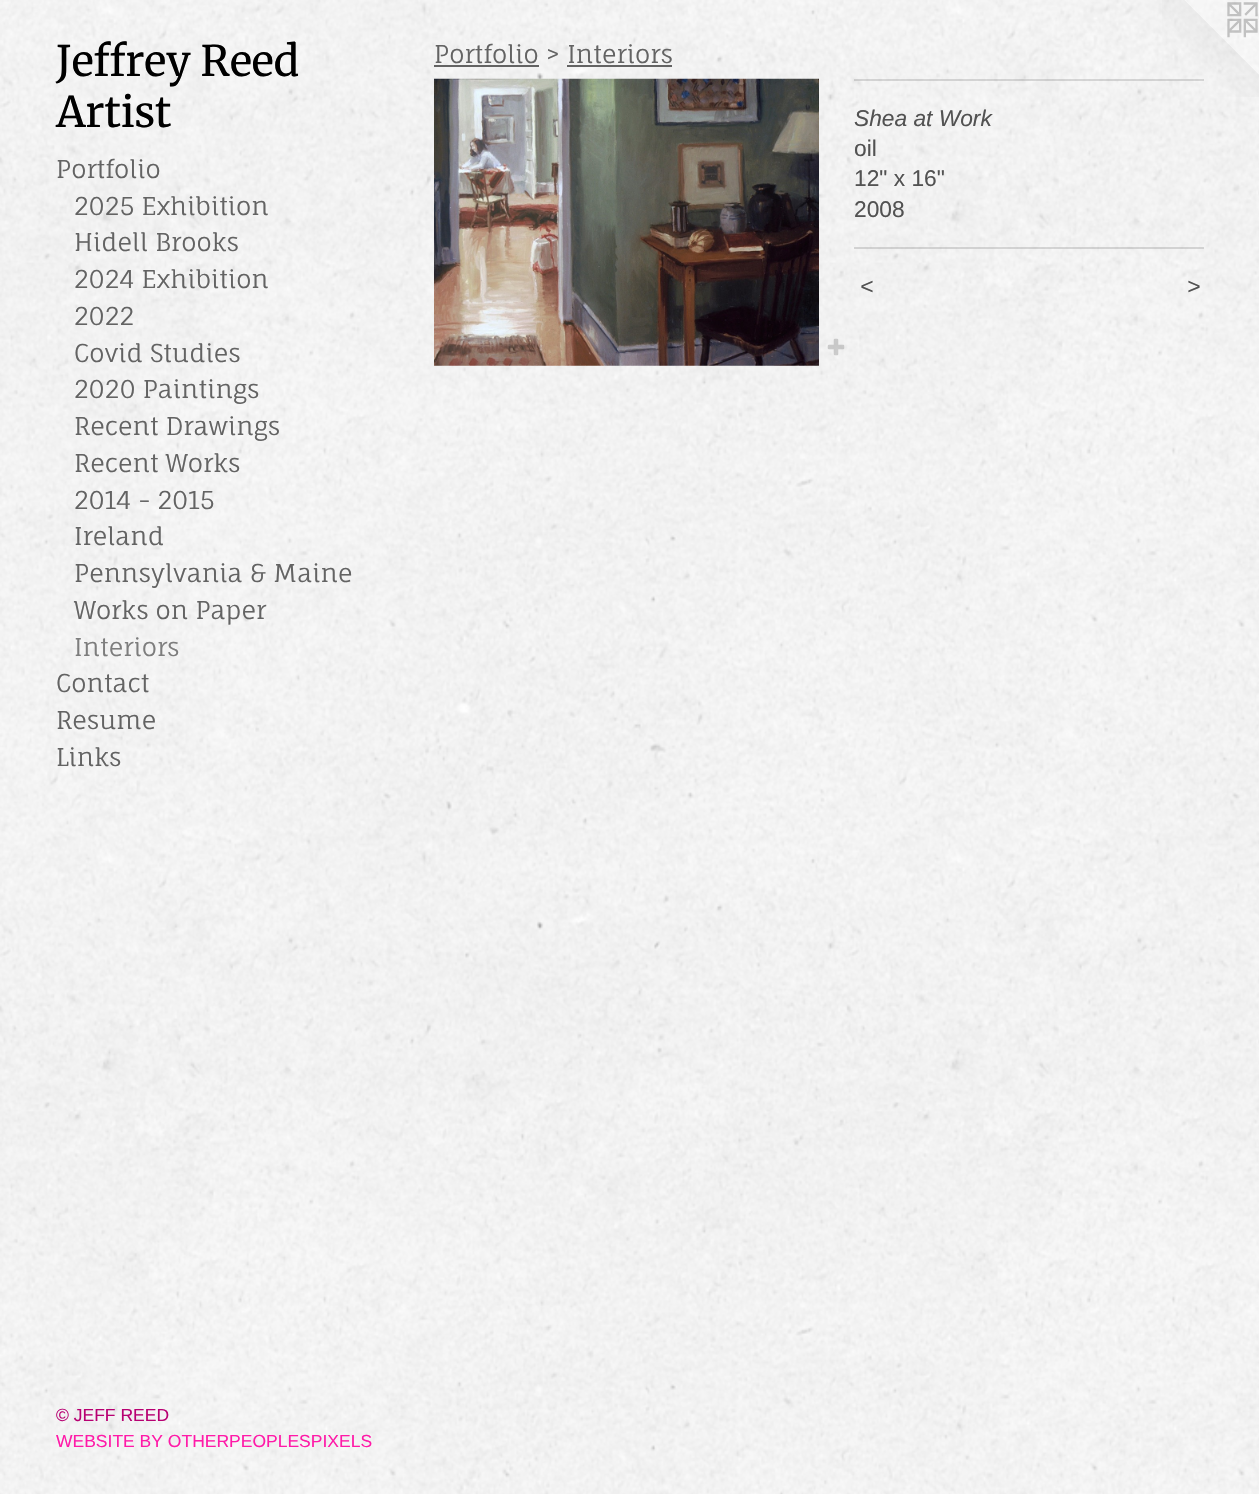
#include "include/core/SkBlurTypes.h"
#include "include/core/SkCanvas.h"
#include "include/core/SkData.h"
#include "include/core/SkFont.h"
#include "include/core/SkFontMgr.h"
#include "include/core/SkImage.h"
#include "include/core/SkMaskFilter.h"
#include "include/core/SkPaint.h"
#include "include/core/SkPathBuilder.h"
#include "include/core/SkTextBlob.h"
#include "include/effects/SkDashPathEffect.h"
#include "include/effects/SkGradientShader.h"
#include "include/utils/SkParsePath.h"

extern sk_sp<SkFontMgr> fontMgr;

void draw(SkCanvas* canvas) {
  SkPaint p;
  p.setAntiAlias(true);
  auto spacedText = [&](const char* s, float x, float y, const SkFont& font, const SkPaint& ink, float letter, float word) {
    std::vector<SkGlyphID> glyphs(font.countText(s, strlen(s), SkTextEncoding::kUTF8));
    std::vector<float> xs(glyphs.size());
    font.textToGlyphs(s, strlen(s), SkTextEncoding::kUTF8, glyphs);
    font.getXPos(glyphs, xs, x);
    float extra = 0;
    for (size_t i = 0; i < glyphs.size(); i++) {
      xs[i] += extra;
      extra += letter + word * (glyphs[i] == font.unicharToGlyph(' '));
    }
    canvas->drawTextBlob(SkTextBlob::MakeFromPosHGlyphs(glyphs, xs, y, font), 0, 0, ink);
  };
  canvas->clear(SK_ColorWHITE);
  canvas->drawImageRect(SkImages::DeferredFromEncodedData(SkData::MakeFromFileName("images/1.png")), SkRect::MakeLTRB(0, 0, 1259, 1494), SkSamplingOptions());
  p.setColor(SkColorSetRGB(99, 99, 99));
  canvas->drawRect(SkRect::MakeLTRB(434, 65, 539, 67), p);
  canvas->drawRect(SkRect::MakeLTRB(567, 65, 672, 67), p);
  canvas->drawImageRect(SkImages::DeferredFromEncodedData(SkData::MakeFromFileName("images/2.png")), SkRect::MakeLTRB(434, 78, 819, 366), SkSamplingOptions());
  canvas->drawImageRect(SkImages::DeferredFromEncodedData(SkData::MakeFromFileName("images/3.png")), SkRect::MakeLTRB(827, 338, 845, 356), SkSamplingOptions());
  canvas->drawImageRect(SkImages::DeferredFromEncodedData(SkData::MakeFromFileName("images/4.png")), SkRect::MakeLTRB(1162, 0, 1259, 97), SkSamplingOptions());
  p.setColor(SkColorSetARGB(51, 82, 82, 82));
  canvas->drawRect(SkRect::MakeLTRB(854, 79, 1204, 81), p);
  canvas->drawRect(SkRect::MakeLTRB(854, 247, 1204, 249), p);
  SkFont font1(fontMgr->matchFamilyStyle("Merriweather", SkFontStyle(300, SkFontStyle::kNormal_Width, SkFontStyle::kUpright_Slant)), 42);
  font1.setSubpixel(true);
  p.setColor(SK_ColorBLACK);
  canvas->drawString("Jeffrey Reed", 56, 76, font1, p);
  canvas->drawString("Artist", 56, 127, font1, p);
  SkFont font2(fontMgr->matchFamilyStyle("Fauna One", SkFontStyle::Normal()), 24.5f);
  font2.setSubpixel(true);
  p.setColor(SkColorSetRGB(99, 99, 99));
  canvas->drawString("Portfolio", 56, 178, font2, p);
  canvas->drawString("2025 Exhibition", 74, 215, font2, p);
  canvas->drawString("Hidell Brooks", 74, 251, font2, p);
  canvas->drawString("2024 Exhibition", 74, 288, font2, p);
  canvas->drawString("2022", 74, 325, font2, p);
  canvas->drawString("Covid Studies", 74, 362, font2, p);
  canvas->drawString("2020 Paintings", 74, 398, font2, p);
  canvas->drawString("Recent Drawings", 74, 435, font2, p);
  canvas->drawString("Recent Works", 74, 472, font2, p);
  canvas->drawString("2014 - 2015", 74, 509, font2, p);
  canvas->drawString("Ireland", 74, 545, font2, p);
  canvas->drawString("Pennsylvania & Maine", 74, 582, font2, p);
  canvas->drawString("Works on Paper", 74, 619, font2, p);
  p.setColor(SkColorSetRGB(125, 125, 125));
  canvas->drawString("Interiors", 74, 656, font2, p);
  p.setColor(SkColorSetRGB(99, 99, 99));
  canvas->drawString("Contact", 56, 692, font2, p);
  canvas->drawString("Resume", 56, 729, font2, p);
  canvas->drawString("Links", 56, 766, font2, p);
  SkFont font3(fontMgr->matchFamilyStyle("Liberation Sans", SkFontStyle::Normal()), 17.5f);
  font3.setSubpixel(true);
  p.setColor(SkColorSetRGB(184, 0, 114));
  canvas->drawString("© JEFF REED", 56, 1421, font3, p);
  p.setColor(SkColorSetRGB(255, 26, 168));
  canvas->drawString("WEBSITE BY OTHERPEOPLESPIXELS", 56, 1447, font3, p);
  p.setColor(SkColorSetRGB(99, 99, 99));
  canvas->drawString("Portfolio > Interiors", 434, 63, font2, p);
  SkFont font4(fontMgr->matchFamilyStyle("Liberation Sans", SkFontStyle::Italic()), 22.75f);
  font4.setSubpixel(true);
  p.setColor(SkColorSetRGB(82, 82, 82));
  canvas->drawString("Shea at Work", 854, 126, font4, p);
  SkFont font5(fontMgr->matchFamilyStyle("Liberation Sans", SkFontStyle::Normal()), 22.75f);
  font5.setSubpixel(true);
  canvas->drawString("oil", 854, 156, font5, p);
  canvas->drawString("12\" x 16\"", 854, 186, font5, p);
  canvas->drawString("2008", 854, 217, font5, p);
  spacedText("<", 860, 294, font4, p, 2, 0);
  spacedText(">", 1187, 294, font4, p, 2, 0);
}
